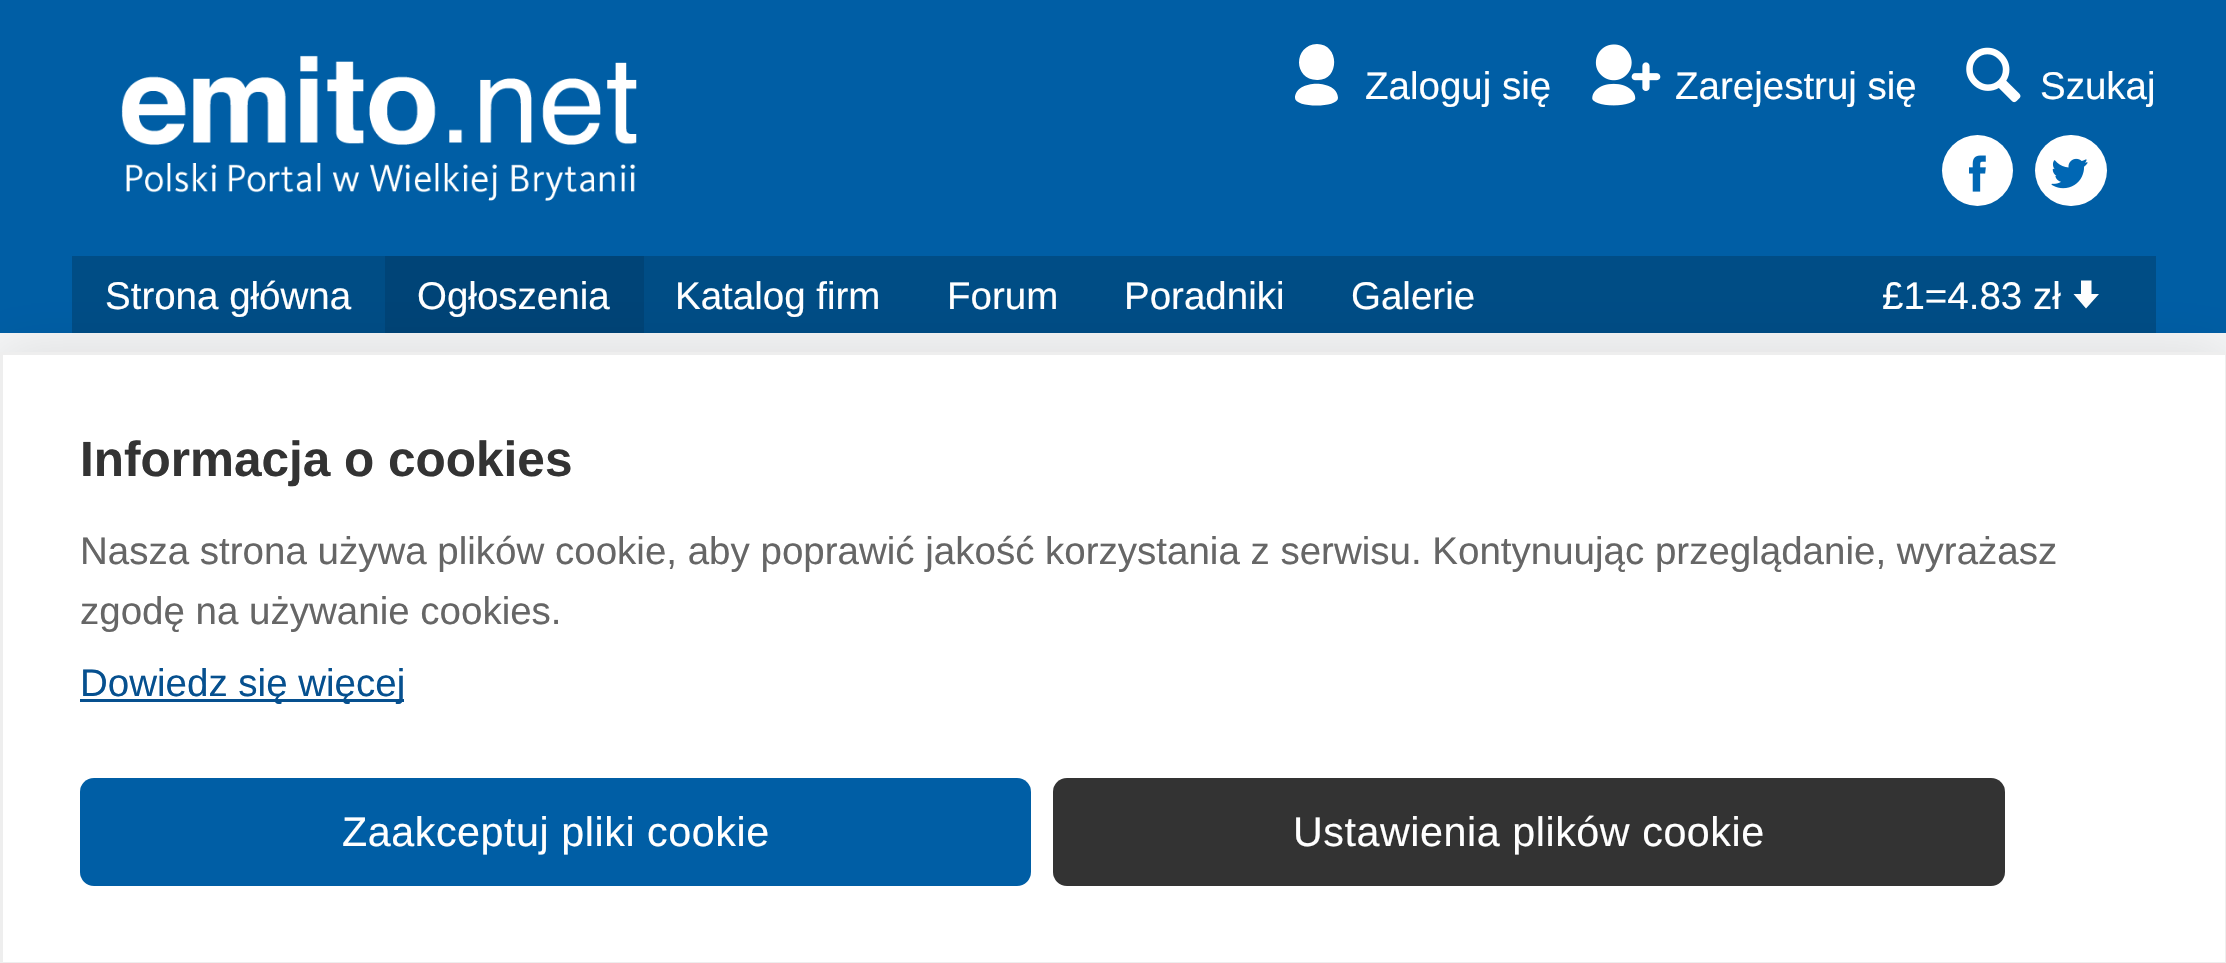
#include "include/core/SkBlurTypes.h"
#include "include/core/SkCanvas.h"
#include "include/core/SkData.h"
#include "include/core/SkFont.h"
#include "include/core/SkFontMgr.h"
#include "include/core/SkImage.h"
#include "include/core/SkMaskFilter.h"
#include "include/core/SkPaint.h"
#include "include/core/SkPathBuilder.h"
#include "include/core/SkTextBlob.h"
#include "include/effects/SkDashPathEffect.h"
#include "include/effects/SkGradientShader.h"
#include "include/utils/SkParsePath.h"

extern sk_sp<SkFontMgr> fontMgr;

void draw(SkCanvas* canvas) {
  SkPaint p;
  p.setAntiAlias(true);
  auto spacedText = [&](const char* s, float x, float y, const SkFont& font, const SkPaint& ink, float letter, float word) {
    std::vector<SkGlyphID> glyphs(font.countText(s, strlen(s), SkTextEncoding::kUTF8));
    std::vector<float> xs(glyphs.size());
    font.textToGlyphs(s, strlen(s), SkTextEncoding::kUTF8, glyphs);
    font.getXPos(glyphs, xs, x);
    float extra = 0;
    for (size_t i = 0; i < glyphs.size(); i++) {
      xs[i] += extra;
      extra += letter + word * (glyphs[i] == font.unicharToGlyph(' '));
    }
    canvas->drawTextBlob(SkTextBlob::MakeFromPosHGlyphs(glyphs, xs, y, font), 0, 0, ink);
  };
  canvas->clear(SkColorSetRGB(245, 246, 247));
  p.setColor(SkColorSetRGB(0, 94, 165));
  canvas->drawRect(SkRect::MakeLTRB(0, 0, 2226, 333), p);
  canvas->drawImageRect(SkImages::DeferredFromEncodedData(SkData::MakeFromFileName("images/1.png")), SkRect::MakeLTRB(121, 55, 637, 201), SkSamplingOptions());
  p.setColor(SK_ColorWHITE);
  canvas->drawPath(SkPathBuilder().moveTo(1317, 44).cubicTo(1340, 44, 1340, 81, 1317, 80).cubicTo(1293, 80, 1293, 45, 1317, 44).close().moveTo(1295, 98).cubicTo(1295, 79, 1338, 79, 1338, 98).cubicTo(1338, 108, 1295, 108, 1295, 98).close().detach(), p);
  canvas->drawImageRect(SkImages::DeferredFromEncodedData(SkData::MakeFromFileName("images/2.png")), SkRect::MakeLTRB(1592, 44, 1661, 106), SkSamplingOptions());
  canvas->drawImageRect(SkImages::DeferredFromEncodedData(SkData::MakeFromFileName("images/3.png")), SkRect::MakeLTRB(1966, 47, 2021, 103), SkSamplingOptions());
  canvas->drawCircle(1977.5f, 170.5f, 35.5f, p);
  canvas->drawImageRect(SkImages::DeferredFromEncodedData(SkData::MakeFromFileName("images/4.png")), SkRect::MakeLTRB(1969, 155, 1986, 192), SkSamplingOptions());
  canvas->drawRoundRect(SkRect::MakeLTRB(2035, 135, 2107, 206), 35.5f, 35.5f, p);
  canvas->drawImageRect(SkImages::DeferredFromEncodedData(SkData::MakeFromFileName("images/5.png")), SkRect::MakeLTRB(2051, 158, 2088, 189), SkSamplingOptions());
  p.setColor(SkColorSetRGB(0, 77, 134));
  canvas->drawRect(SkRect::MakeLTRB(72, 256, 2156, 333), p);
  p.setColor(SkColorSetRGB(0, 68, 119));
  canvas->drawRect(SkRect::MakeLTRB(385, 256, 644, 333), p);
  p.setColor(SK_ColorWHITE);
  canvas->drawPath(SkPathBuilder().moveTo(2099, 294).lineTo(2086, 308.5f).lineTo(2073.5f, 294).lineTo(2081, 294).lineTo(2081, 280.5f).lineTo(2091.5f, 280.5f).lineTo(2091.5f, 294).close().detach(), p);
  p.setColor(SkColorSetARGB(26, 0, 0, 0));
  p.setMaskFilter(SkMaskFilter::MakeBlur(kNormal_SkBlurStyle, 27.5f));
  canvas->drawRect(SkRect::MakeLTRB(0, 352, 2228, 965), p);
  p.setMaskFilter(nullptr);
  p.setColor(SK_ColorWHITE);
  canvas->drawRect(SkRect::MakeLTRB(1.5f, 353.5f, 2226.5f, 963.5f), p);
  p.setStyle(SkPaint::kStroke_Style);
  p.setStrokeWidth(3);
  p.setColor(SkColorSetRGB(238, 238, 238));
  canvas->drawRect(SkRect::MakeLTRB(1.5f, 353.5f, 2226.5f, 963.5f), p);
  p.setStyle(SkPaint::kFill_Style);
  p.setColor(SkColorSetRGB(6, 80, 143));
  canvas->drawRect(SkRect::MakeLTRB(80, 699, 404, 702), p);
  p.setColor(SkColorSetRGB(0, 94, 165));
  canvas->drawRoundRect(SkRect::MakeLTRB(80, 778, 1031, 886), 14, 14, p);
  p.setColor(SkColorSetRGB(51, 51, 51));
  canvas->drawRoundRect(SkRect::MakeLTRB(1053, 778, 2005, 886), 14, 14, p);
  SkFont font1(fontMgr->matchFamilyStyle("Liberation Sans", SkFontStyle::Normal()), 38.5f);
  font1.setSubpixel(true);
  p.setColor(SK_ColorWHITE);
  canvas->drawString("Zaloguj się", 1365, 99, font1, p);
  canvas->drawString("Zarejestruj się", 1675, 99, font1, p);
  canvas->drawString("Szukaj", 2040, 99, font1, p);
  canvas->drawString("Strona główna", 105, 309, font1, p);
  canvas->drawString("Ogłoszenia", 417, 309, font1, p);
  canvas->drawString("Katalog firm", 675, 309, font1, p);
  canvas->drawString("Forum", 947, 309, font1, p);
  canvas->drawString("Poradniki", 1124, 309, font1, p);
  canvas->drawString("Galerie", 1351, 309, font1, p);
  canvas->drawString("£1=4.83 zł", 1882, 309, font1, p);
  SkFont font2(fontMgr->matchFamilyStyle("Liberation Sans", SkFontStyle::Bold()), 49.5f);
  font2.setSubpixel(true);
  p.setColor(SkColorSetRGB(51, 51, 51));
  canvas->drawString("Informacja o cookies", 80, 476, font2, p);
  p.setColor(SkColorSetRGB(102, 102, 102));
  canvas->drawString("Nasza strona używa plików cookie, aby poprawić jakość korzystania z serwisu. Kontynuując przeglądanie, wyrażasz", 80, 564, font1, p);
  canvas->drawString("zgodę na używanie cookies.", 80, 624, font1, p);
  p.setColor(SkColorSetRGB(6, 80, 143));
  canvas->drawString("Dowiedz się więcej", 80, 696, font1, p);
  SkFont font3(fontMgr->matchFamilyStyle("Liberation Sans", SkFontStyle::Normal()), 41.25f);
  font3.setSubpixel(true);
  p.setColor(SK_ColorWHITE);
  spacedText("Zaakceptuj pliki cookie", 342, 846, font3, p, 0.55f, 0);
  spacedText("Ustawienia plików cookie", 1293, 846, font3, p, 0.55f, 0);
}
